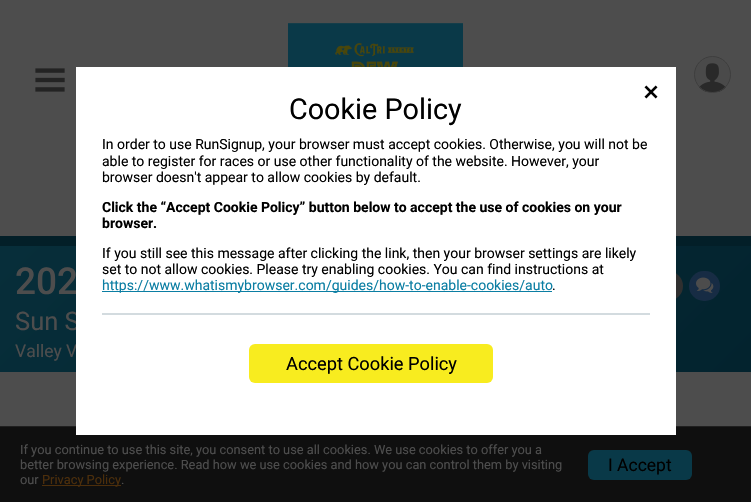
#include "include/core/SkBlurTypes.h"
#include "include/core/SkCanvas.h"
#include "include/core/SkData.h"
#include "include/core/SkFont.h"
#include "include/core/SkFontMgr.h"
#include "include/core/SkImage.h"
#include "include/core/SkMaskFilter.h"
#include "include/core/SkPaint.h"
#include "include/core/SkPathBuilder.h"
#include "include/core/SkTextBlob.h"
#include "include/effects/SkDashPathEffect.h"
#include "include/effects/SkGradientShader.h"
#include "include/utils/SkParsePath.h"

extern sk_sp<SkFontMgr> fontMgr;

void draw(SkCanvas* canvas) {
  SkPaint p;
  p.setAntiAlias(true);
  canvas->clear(SkColorSetRGB(77, 77, 77));
  canvas->drawImageRect(SkImages::DeferredFromEncodedData(SkData::MakeFromFileName("images/1.png")), SkRect::MakeLTRB(288, 23, 463, 67), SkSamplingOptions());
  canvas->drawImageRect(SkImages::DeferredFromEncodedData(SkData::MakeFromFileName("images/2.png")), SkRect::MakeLTRB(35, 68, 65, 92), SkSamplingOptions());
  canvas->drawImageRect(SkImages::DeferredFromEncodedData(SkData::MakeFromFileName("images/3.png")), SkRect::MakeLTRB(695, 57, 730, 92), SkSamplingOptions());
  p.setStyle(SkPaint::kStroke_Style);
  p.setStrokeWidth(1);
  p.setColor(SkColorSetRGB(61, 61, 61));
  canvas->drawCircle(712.5f, 74.5f, 18, p);
  p.setStyle(SkPaint::kFill_Style);
  {
    const SkColor colors[] = {SkColorSetRGB(3, 35, 46), SkColorSetRGB(7, 46, 58)};
    const float stops[] = {0, 1};
    const SkPoint ends[] = {{595, 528}, {156, 90}};
    p.setShader(SkGradientShader::MakeLinear(ends, colors, stops, 2, SkTileMode::kClamp));
    p.setAlpha(255);
  }
  canvas->drawRect(SkRect::MakeLTRB(0, 246, 751, 372), p);
  p.setShader(nullptr);
  p.setColor(SkColorSetRGB(3, 31, 40));
  canvas->drawRect(SkRect::MakeLTRB(0, 236, 751, 246), p);
  p.setColor(SkColorSetRGB(47, 47, 47));
  canvas->drawCircle(668, 286, 15, p);
  p.setColor(SkColorSetRGB(23, 44, 68));
  canvas->drawRoundRect(SkRect::MakeLTRB(689, 271, 720, 301), 15, 15, p);
  canvas->drawImageRect(SkImages::DeferredFromEncodedData(SkData::MakeFromFileName("images/4.png")), SkRect::MakeLTRB(696, 277, 714, 293), SkSamplingOptions());
  p.setColor(SkColorSetRGB(15, 15, 15));
  canvas->drawRect(SkRect::MakeLTRB(0, 427, 751, 502), p);
  p.setColor(SkColorSetRGB(31, 31, 31));
  canvas->drawRect(SkRect::MakeLTRB(0, 426, 751, 427), p);
  p.setColor(SkColorSetRGB(76, 46, 11));
  canvas->drawRect(SkRect::MakeLTRB(42, 485, 121, 486), p);
  p.setColor(SkColorSetRGB(9, 57, 72));
  canvas->drawRoundRect(SkRect::MakeLTRB(588, 450, 692, 480), 6, 6, p);
  SkFont font1(fontMgr->matchFamilyStyle("Roboto", SkFontStyle(500, SkFontStyle::kNormal_Width, SkFontStyle::kUpright_Slant)), 37);
  font1.setSubpixel(true);
  p.setColor(SkColorSetRGB(77, 77, 77));
  canvas->drawString("202", 15, 294, font1, p);
  SkFont font2(fontMgr->matchFamilyStyle("Roboto", SkFontStyle::Normal()), 25.5f);
  font2.setSubpixel(true);
  canvas->drawString("Sun S", 15, 330, font2, p);
  SkFont font3(fontMgr->matchFamilyStyle("Roboto", SkFontStyle::Normal()), 17.5f);
  font3.setSubpixel(true);
  canvas->drawString("Valley V", 15, 357, font3, p);
  p.setStyle(SkPaint::kStroke_Style);
  p.setColor(SK_ColorWHITE);
  canvas->drawRect(SkRect::MakeLTRB(76.5f, 67.5f, 675.5f, 434.5f), p);
  p.setStyle(SkPaint::kFill_Style);
  canvas->drawRect(SkRect::MakeLTRB(77, 68, 675, 434), p);
  canvas->drawImageRect(SkImages::DeferredFromEncodedData(SkData::MakeFromFileName("images/5.png")), SkRect::MakeLTRB(644, 85, 658, 99), SkSamplingOptions());
  SkFont font4(fontMgr->matchFamilyStyle("Roboto", SkFontStyle::Normal()), 28.75f);
  font4.setSubpixel(true);
  p.setColor(SK_ColorBLACK);
  canvas->drawString("Cookie Policy", 289, 119, font4, p);
  SkFont font5(fontMgr->matchFamilyStyle("Roboto", SkFontStyle::Normal()), 14);
  font5.setSubpixel(true);
  canvas->drawString("In order to use RunSignup, your browser must accept cookies. Otherwise, you will not be", 102, 149, font5, p);
  canvas->drawString("able to register for races or use other functionality of the website. However, your", 102, 166, font5, p);
  canvas->drawString("browser doesn't appear to allow cookies by default.", 102, 182, font5, p);
  SkFont font6(fontMgr->matchFamilyStyle("Roboto", SkFontStyle::Bold()), 14);
  font6.setSubpixel(true);
  canvas->drawString("Click the “Accept Cookie Policy” button below to accept the use of cookies on your", 102, 212, font6, p);
  canvas->drawString("browser.", 102, 228, font6, p);
  canvas->drawString("If you still see this message after clicking the link, then your browser settings are likely", 102, 258, font5, p);
  canvas->drawString("set to not allow cookies. Please try enabling cookies. You can find instructions at", 102, 274, font5, p);
  p.setColor(SkColorSetRGB(11, 126, 163));
  canvas->drawRect(SkRect::MakeLTRB(102, 291, 552, 292), p);
  canvas->drawString("https://www.whatismybrowser.com/guides/how-to-enable-cookies/auto", 102, 290, font5, p);
  p.setColor(SK_ColorBLACK);
  canvas->drawString(".", 552, 290, font5, p);
  p.setColor(SkColorSetRGB(211, 219, 223));
  canvas->drawRect(SkRect::MakeLTRB(102, 313, 650, 315), p);
  p.setColor(SkColorSetRGB(248, 236, 31));
  canvas->drawRoundRect(SkRect::MakeLTRB(249, 344, 493, 383), 6, 6, p);
  SkFont font7(fontMgr->matchFamilyStyle("Roboto", SkFontStyle::Normal()), 18.25f);
  font7.setSubpixel(true);
  p.setColor(SK_ColorBLACK);
  canvas->drawString("Accept Cookie Policy", 286, 370, font7, p);
  SkFont font8(fontMgr->matchFamilyStyle("Roboto", SkFontStyle::Normal()), 12.8f);
  font8.setSubpixel(true);
  p.setColor(SkColorSetRGB(77, 77, 77));
  canvas->drawString("If you continue to use this site, you consent to use all cookies. We use cookies to offer you a", 20, 454, font8, p);
  canvas->drawString("better browsing experience. Read how we use cookies and how you can control them by visiting", 20, 469, font8, p);
  canvas->drawString("our", 20, 484, font8, p);
  p.setColor(SkColorSetRGB(76, 46, 11));
  canvas->drawString("Privacy Policy", 42, 484, font8, p);
  p.setColor(SkColorSetRGB(77, 77, 77));
  canvas->drawString(".", 121, 484, font8, p);
  p.setColor(SK_ColorBLACK);
  canvas->drawString("I Accept", 608, 471, font3, p);
}
